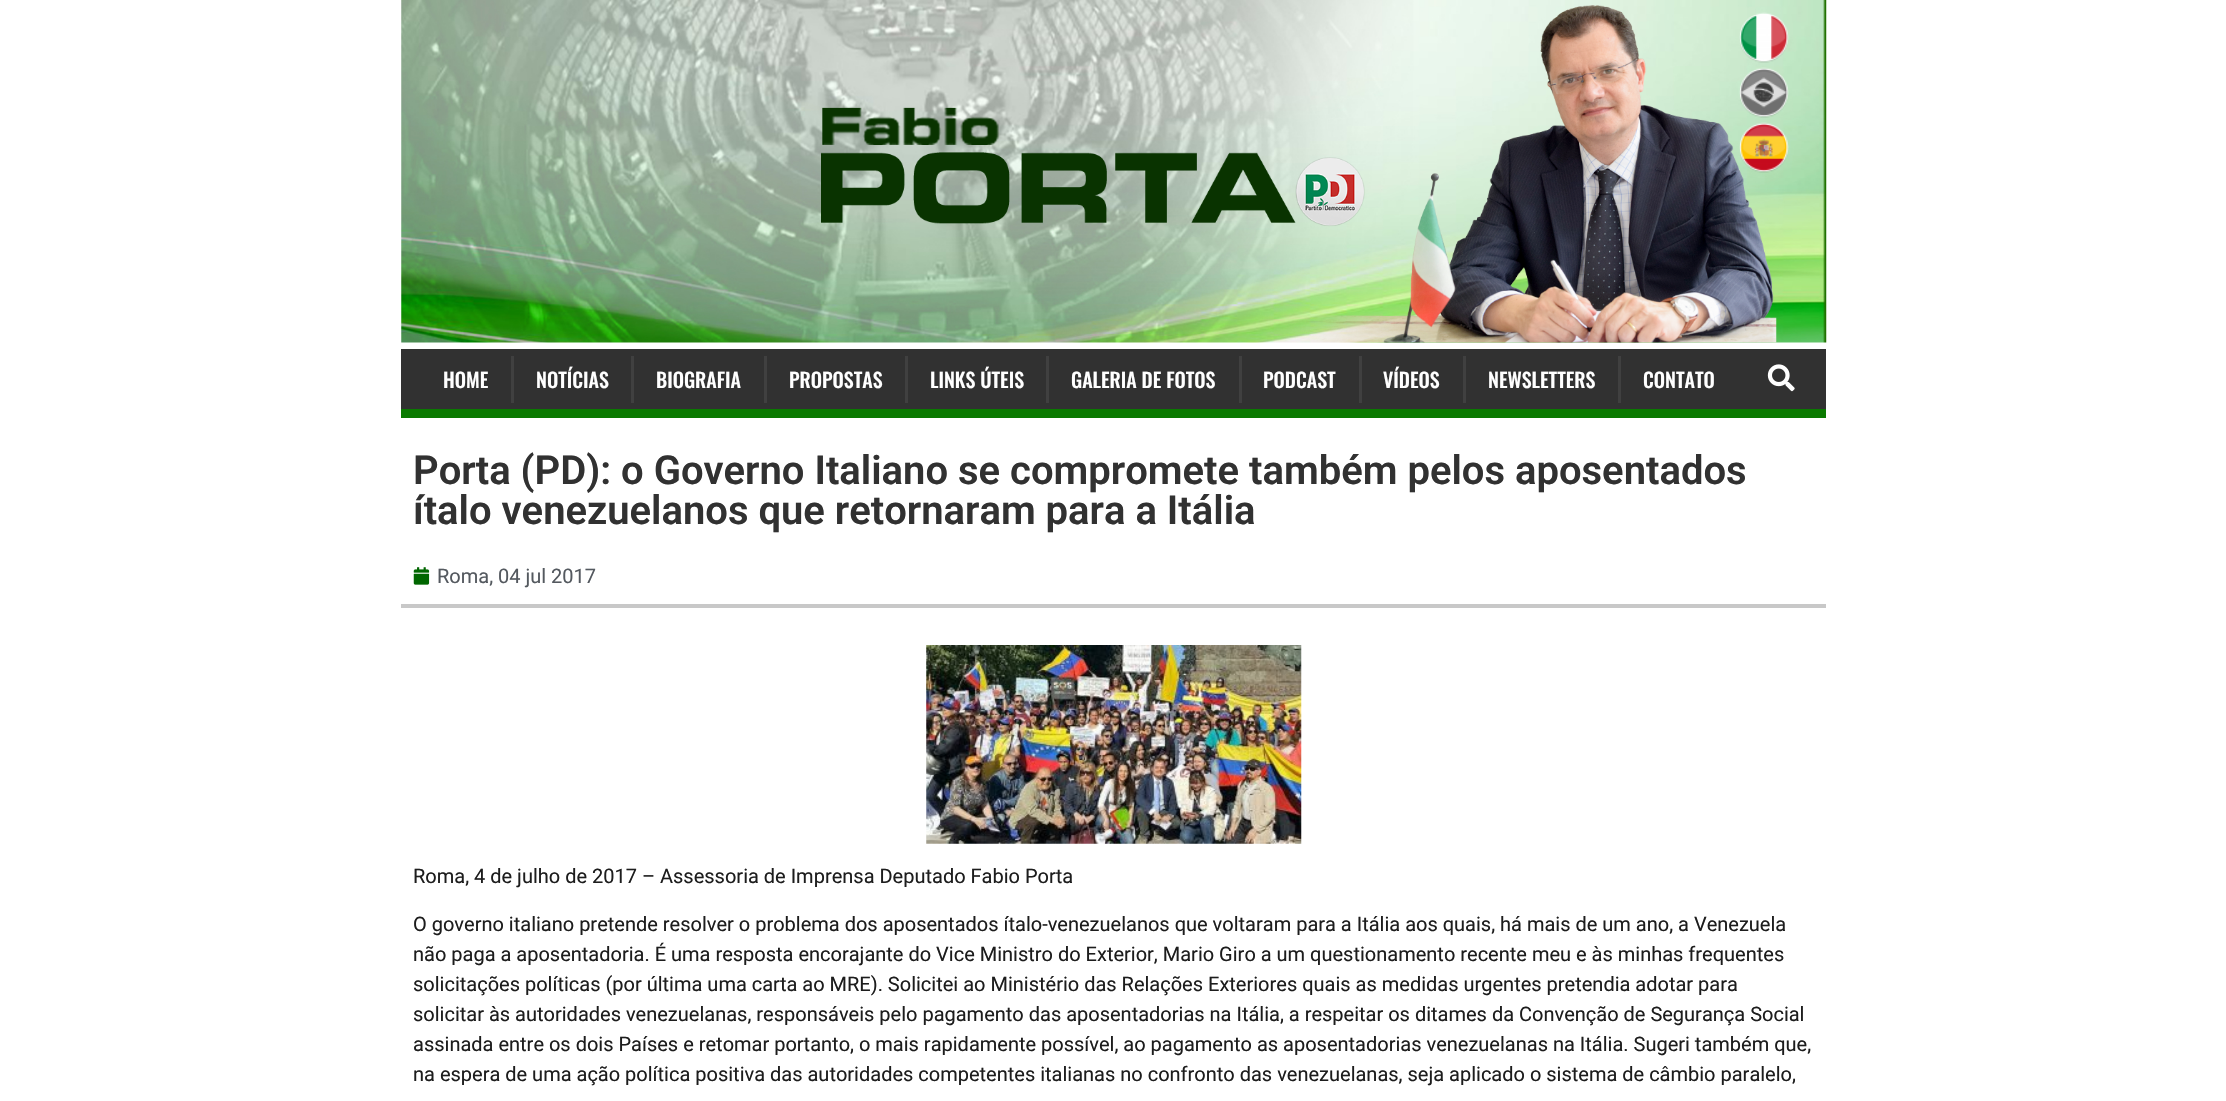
#include "include/core/SkBlurTypes.h"
#include "include/core/SkCanvas.h"
#include "include/core/SkData.h"
#include "include/core/SkFont.h"
#include "include/core/SkFontMgr.h"
#include "include/core/SkImage.h"
#include "include/core/SkMaskFilter.h"
#include "include/core/SkPaint.h"
#include "include/core/SkPathBuilder.h"
#include "include/core/SkTextBlob.h"
#include "include/effects/SkDashPathEffect.h"
#include "include/effects/SkGradientShader.h"
#include "include/utils/SkParsePath.h"

extern sk_sp<SkFontMgr> fontMgr;

void draw(SkCanvas* canvas) {
  SkPaint p;
  p.setAntiAlias(true);
  canvas->clear(SK_ColorWHITE);
  canvas->drawImageRect(SkImages::DeferredFromEncodedData(SkData::MakeFromFileName("images/1.png")), SkRect::MakeLTRB(401, 0, 1827, 343), SkSamplingOptions());
  canvas->drawImageRect(SkImages::DeferredFromEncodedData(SkData::MakeFromFileName("images/2.png")), SkRect::MakeLTRB(821, 5, 1777, 343), SkSamplingOptions());
  canvas->drawImageRect(SkImages::DeferredFromEncodedData(SkData::MakeFromFileName("images/3.png")), SkRect::MakeLTRB(1739, 12, 1789, 63), SkSamplingOptions());
  canvas->drawImageRect(SkImages::DeferredFromEncodedData(SkData::MakeFromFileName("images/4.png")), SkRect::MakeLTRB(1739, 67, 1789, 118), SkSamplingOptions());
  canvas->drawImageRect(SkImages::DeferredFromEncodedData(SkData::MakeFromFileName("images/5.png")), SkRect::MakeLTRB(1739, 122, 1789, 173), SkSamplingOptions());
  p.setColor(SkColorSetRGB(49, 49, 49));
  canvas->drawRect(SkRect::MakeLTRB(401, 349, 1826, 409), p);
  p.setColor(SkColorSetRGB(10, 122, 0));
  canvas->drawRect(SkRect::MakeLTRB(401, 409, 1826, 418), p);
  p.setColor(SkColorSetRGB(64, 64, 64));
  canvas->drawRect(SkRect::MakeLTRB(511, 356, 514, 403), p);
  canvas->drawRect(SkRect::MakeLTRB(631, 356, 634, 403), p);
  canvas->drawRect(SkRect::MakeLTRB(764, 356, 767, 403), p);
  canvas->drawRect(SkRect::MakeLTRB(905, 356, 908, 403), p);
  canvas->drawRect(SkRect::MakeLTRB(1046, 356, 1049, 403), p);
  canvas->drawRect(SkRect::MakeLTRB(1239, 356, 1242, 403), p);
  canvas->drawRect(SkRect::MakeLTRB(1359, 356, 1362, 403), p);
  canvas->drawRect(SkRect::MakeLTRB(1463, 356, 1466, 403), p);
  canvas->drawRect(SkRect::MakeLTRB(1618, 356, 1621, 403), p);
  canvas->drawImageRect(SkImages::DeferredFromEncodedData(SkData::MakeFromFileName("images/6.png")), SkRect::MakeLTRB(1767, 364, 1795, 392), SkSamplingOptions());
  p.setColor(SkColorSetRGB(200, 200, 200));
  canvas->drawRect(SkRect::MakeLTRB(401, 604, 1826, 608), p);
  canvas->drawImageRect(SkImages::DeferredFromEncodedData(SkData::MakeFromFileName("images/7.png")), SkRect::MakeLTRB(413, 567, 430, 585), SkSamplingOptions());
  canvas->drawImageRect(SkImages::DeferredFromEncodedData(SkData::MakeFromFileName("images/8.png")), SkRect::MakeLTRB(926, 645, 1302, 844), SkSamplingOptions());
  SkFont font1(fontMgr->matchFamilyStyle("Oswald", SkFontStyle(500, SkFontStyle::kNormal_Width, SkFontStyle::kUpright_Slant)), 20);
  font1.setSubpixel(true);
  p.setColor(SK_ColorWHITE);
  canvas->drawString("HOME", 443, 388, font1, p);
  canvas->drawString("NOTÍCIAS", 536, 388, font1, p);
  canvas->drawString("BIOGRAFIA", 656, 388, font1, p);
  canvas->drawString("PROPOSTAS", 789, 388, font1, p);
  canvas->drawString("LINKS ÚTEIS", 930, 388, font1, p);
  canvas->drawString("GALERIA DE FOTOS", 1071, 388, font1, p);
  canvas->drawString("PODCAST", 1263, 388, font1, p);
  canvas->drawString("VÍDEOS", 1383, 388, font1, p);
  canvas->drawString("NEWSLETTERS", 1488, 388, font1, p);
  canvas->drawString("CONTATO", 1643, 388, font1, p);
  SkFont font2(fontMgr->matchFamilyStyle("Roboto", SkFontStyle(600, SkFontStyle::kNormal_Width, SkFontStyle::kUpright_Slant)), 40);
  font2.setSubpixel(true);
  p.setColor(SkColorSetRGB(49, 49, 49));
  canvas->drawString("Porta (PD): o Governo Italiano se compromete também pelos aposentados", 413, 484, font2, p);
  canvas->drawString("ítalo venezuelanos que retornaram para a Itália", 413, 524, font2, p);
  SkFont font3(fontMgr->matchFamilyStyle("Roboto", SkFontStyle::Normal()), 20);
  font3.setSubpixel(true);
  p.setColor(SkColorSetRGB(84, 89, 95));
  canvas->drawString("Roma, 04 jul 2017", 437, 583, font3, p);
  p.setColor(SkColorSetRGB(29, 29, 29));
  canvas->drawString("Roma, 4 de julho de 2017 – Assessoria de Imprensa Deputado Fabio Porta", 413, 883, font3, p);
  canvas->drawString("O governo italiano pretende resolver o problema dos aposentados ítalo-venezuelanos que voltaram para a Itália aos quais, há mais de um ano, a Venezuela", 413, 931, font3, p);
  canvas->drawString("não paga a aposentadoria. É uma resposta encorajante do Vice Ministro do Exterior, Mario Giro a um questionamento recente meu e às minhas frequentes", 413, 961, font3, p);
  canvas->drawString("solicitações políticas (por última uma carta ao MRE). Solicitei ao Ministério das Relações Exteriores quais as medidas urgentes pretendia adotar para", 413, 991, font3, p);
  canvas->drawString("solicitar às autoridades venezuelanas, responsáveis pelo pagamento das aposentadorias na Itália, a respeitar os ditames da Convenção de Segurança Social", 413, 1021, font3, p);
  canvas->drawString("assinada entre os dois Países e retomar portanto, o mais rapidamente possível, ao pagamento as aposentadorias venezuelanas na Itália. Sugeri também que,", 413, 1051, font3, p);
  canvas->drawString("na espera de uma ação política positiva das autoridades competentes italianas no confronto das venezuelanas, seja aplicado o sistema de câmbio paralelo,", 413, 1081, font3, p);
}
